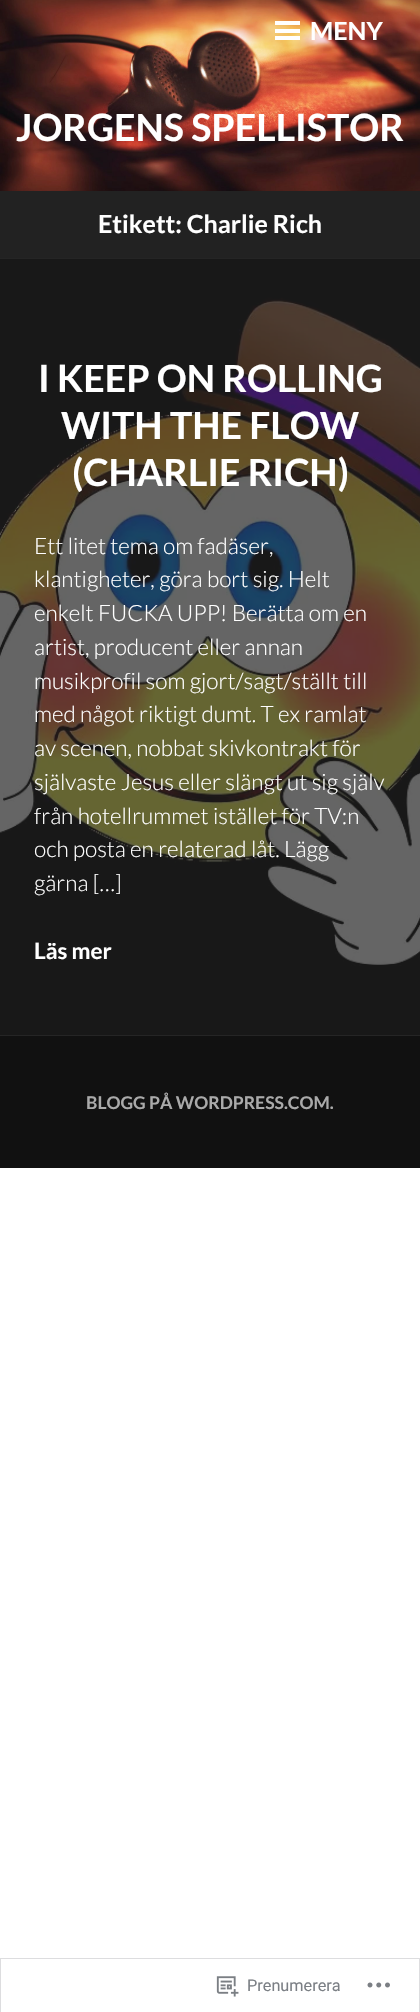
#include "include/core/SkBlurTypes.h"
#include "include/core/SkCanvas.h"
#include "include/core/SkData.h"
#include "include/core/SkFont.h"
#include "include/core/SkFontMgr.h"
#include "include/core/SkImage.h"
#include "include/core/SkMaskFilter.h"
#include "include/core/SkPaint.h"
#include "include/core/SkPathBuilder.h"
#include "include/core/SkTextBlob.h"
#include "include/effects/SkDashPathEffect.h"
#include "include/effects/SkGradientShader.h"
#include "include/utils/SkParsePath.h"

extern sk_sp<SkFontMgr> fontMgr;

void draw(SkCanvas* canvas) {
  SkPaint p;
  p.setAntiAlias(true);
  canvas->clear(SK_ColorWHITE);
  canvas->drawImageRect(SkImages::DeferredFromEncodedData(SkData::MakeFromFileName("images/1.png")), SkRect::MakeLTRB(0, 0, 420, 191), SkSamplingOptions());
  p.setColor(SK_ColorWHITE);
  canvas->drawRect(SkRect::MakeLTRB(275, 29, 300, 33), p);
  canvas->drawRect(SkRect::MakeLTRB(275, 21, 300, 25), p);
  canvas->drawRect(SkRect::MakeLTRB(275, 36, 300, 40), p);
  p.setColor(SkColorSetRGB(34, 34, 34));
  canvas->drawRect(SkRect::MakeLTRB(0, 191, 420, 258), p);
  p.setColor(SkColorSetRGB(37, 37, 37));
  canvas->drawRect(SkRect::MakeLTRB(0, 258, 420, 259), p);
  p.setColor(SkColorSetRGB(34, 34, 34));
  canvas->drawRect(SkRect::MakeLTRB(0, 259, 420, 1035), p);
  p.setColor(SkColorSetRGB(37, 37, 37));
  canvas->drawRect(SkRect::MakeLTRB(0, 1035, 420, 1036), p);
  canvas->drawImageRect(SkImages::DeferredFromEncodedData(SkData::MakeFromFileName("images/2.png")), SkRect::MakeLTRB(0, 259, 420, 1035), SkSamplingOptions());
  p.setColor(SkColorSetRGB(17, 17, 17));
  canvas->drawRect(SkRect::MakeLTRB(0, 1036, 420, 1168), p);
  p.setStyle(SkPaint::kStroke_Style);
  p.setStrokeWidth(1);
  p.setColor(SkColorSetRGB(221, 221, 223));
  canvas->drawRect(SkRect::MakeLTRB(0.5f, 1958.5f, 419.5f, 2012.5f), p);
  canvas->drawImageRect(SkImages::DeferredFromEncodedData(SkData::MakeFromFileName("images/3.png")), SkRect::MakeLTRB(216, 1976, 239, 1997), SkSamplingOptions());
  canvas->drawImageRect(SkImages::DeferredFromEncodedData(SkData::MakeFromFileName("images/4.png")), SkRect::MakeLTRB(367, 1982, 390, 1988), SkSamplingOptions());
  SkFont font1(fontMgr->matchFamilyStyle("Lato", SkFontStyle::Bold()), 25);
  font1.setSubpixel(true);
  p.setStyle(SkPaint::kFill_Style);
  p.setColor(SK_ColorWHITE);
  canvas->drawString("MENY", 310, 40, font1, p);
  SkFont font2(fontMgr->matchFamilyStyle("Lato", SkFontStyle::Bold()), 37.5f);
  font2.setSubpixel(true);
  canvas->drawString("JORGENS SPELLISTOR", 16, 141, font2, p);
  canvas->drawString("Etikett: Charlie Rich", 98, 233, font1, p);
  canvas->drawString("I KEEP ON ROLLING", 38, 392, font2, p);
  canvas->drawString("WITH THE FLOW", 61, 439, font2, p);
  canvas->drawString("(CHARLIE RICH)", 72, 486, font2, p);
  SkFont font3(fontMgr->matchFamilyStyle("Lato", SkFontStyle(300, SkFontStyle::kNormal_Width, SkFontStyle::kUpright_Slant)), 22.5f);
  font3.setSubpixel(true);
  canvas->drawString("Ett litet tema om fadäser,", 34, 554, font3, p);
  canvas->drawString("klantigheter, göra bort sig. Helt", 34, 587, font3, p);
  canvas->drawString("enkelt FUCKA UPP! Berätta om en", 34, 621, font3, p);
  canvas->drawString("artist, producent eller annan", 34, 655, font3, p);
  canvas->drawString("musikprofil som gjort/sagt/ställt till", 34, 689, font3, p);
  canvas->drawString("med något riktigt dumt. T ex ramlat", 34, 722, font3, p);
  canvas->drawString("av scenen, nobbat skivkontrakt för", 34, 756, font3, p);
  canvas->drawString("självaste Jesus eller slängt ut sig själv", 34, 790, font3, p);
  canvas->drawString("från hotellrummet istället för TV:n", 34, 824, font3, p);
  canvas->drawString("och posta en relaterad låt. Lägg", 34, 857, font3, p);
  canvas->drawString("gärna […]", 34, 891, font3, p);
  SkFont font4(fontMgr->matchFamilyStyle("Lato", SkFontStyle::Bold()), 22.5f);
  font4.setSubpixel(true);
  canvas->drawString("Läs mer", 34, 959, font4, p);
  SkFont font5(fontMgr->matchFamilyStyle("Lato", SkFontStyle::Bold()), 17.5f);
  font5.setSubpixel(true);
  p.setColor(SkColorSetRGB(170, 170, 170));
  canvas->drawString("BLOGG PÅ WORDPRESS.COM.", 86, 1109, font5, p);
  SkFont font6(fontMgr->matchFamilyStyle("Roboto", SkFontStyle::Normal()), 16.25f);
  font6.setSubpixel(true);
  p.setColor(SkColorSetRGB(123, 127, 133));
  canvas->drawString("Prenumerera", 247, 1991, font6, p);
}
